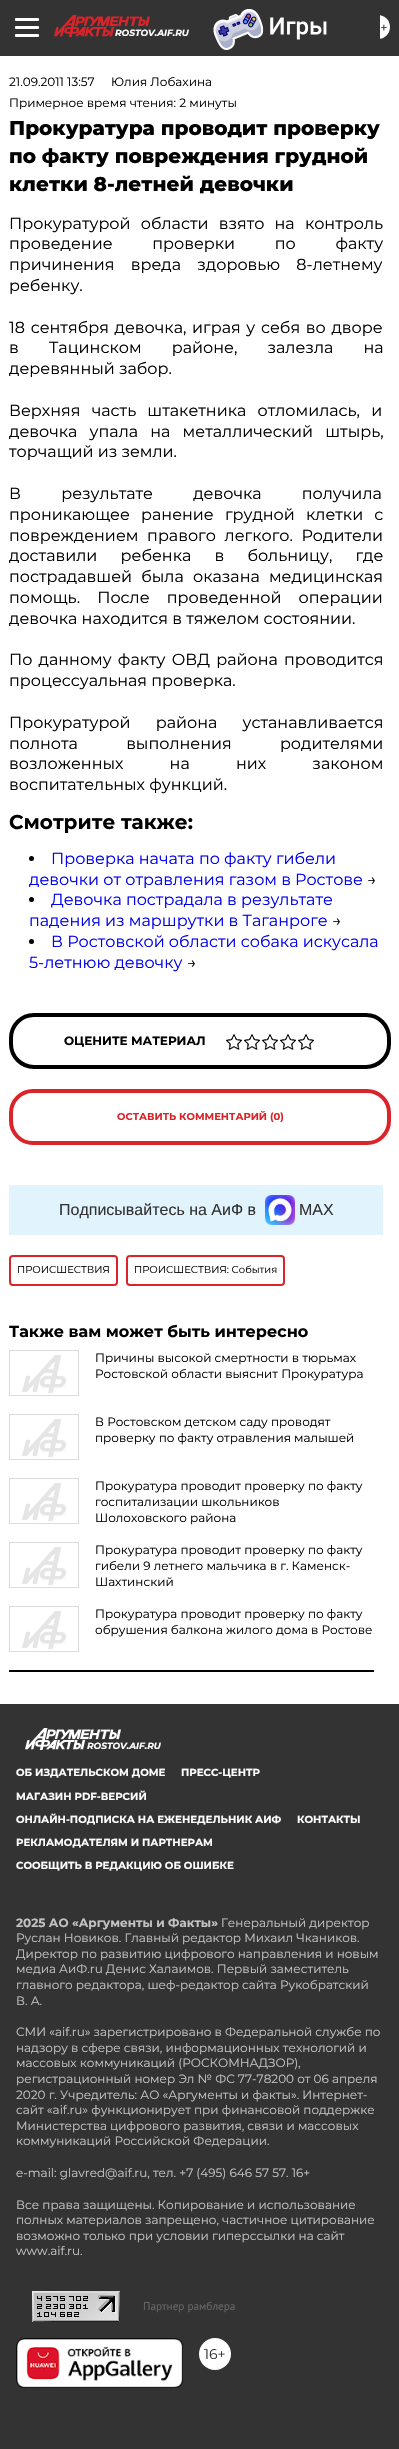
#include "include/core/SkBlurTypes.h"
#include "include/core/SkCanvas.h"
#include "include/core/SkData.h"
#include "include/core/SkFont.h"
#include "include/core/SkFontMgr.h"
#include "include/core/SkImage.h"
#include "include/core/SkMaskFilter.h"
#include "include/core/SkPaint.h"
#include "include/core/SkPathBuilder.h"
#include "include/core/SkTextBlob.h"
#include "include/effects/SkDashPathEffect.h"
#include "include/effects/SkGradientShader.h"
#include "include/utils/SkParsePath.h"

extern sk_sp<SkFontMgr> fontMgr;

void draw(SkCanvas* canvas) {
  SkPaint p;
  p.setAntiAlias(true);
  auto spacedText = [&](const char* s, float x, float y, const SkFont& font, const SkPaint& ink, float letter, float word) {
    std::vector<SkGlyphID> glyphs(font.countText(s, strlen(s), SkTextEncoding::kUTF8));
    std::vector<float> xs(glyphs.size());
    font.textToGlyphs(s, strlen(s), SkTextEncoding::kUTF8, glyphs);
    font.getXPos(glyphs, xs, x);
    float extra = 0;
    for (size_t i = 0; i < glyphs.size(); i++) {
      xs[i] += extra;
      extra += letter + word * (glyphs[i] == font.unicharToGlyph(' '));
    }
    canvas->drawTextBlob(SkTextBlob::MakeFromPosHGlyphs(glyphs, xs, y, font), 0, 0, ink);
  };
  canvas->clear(SkColorSetRGB(51, 51, 51));
  p.setColor(SK_ColorWHITE);
  canvas->drawRect(SkRect::MakeLTRB(0, 56, 399, 1704), p);
  canvas->drawRoundRect(SkRect::MakeLTRB(15, 18, 39, 21), 1, 1, p);
  canvas->drawRoundRect(SkRect::MakeLTRB(15, 26, 39, 29), 1, 1, p);
  canvas->drawRoundRect(SkRect::MakeLTRB(15, 34, 39, 37), 1, 1, p);
  canvas->drawCircle(378, 27, 12, p);
  canvas->drawImageRect(SkImages::DeferredFromEncodedData(SkData::MakeFromFileName("images/1.png")), SkRect::MakeLTRB(213, 9, 380, 50), SkSamplingOptions());
  canvas->drawImageRect(SkImages::DeferredFromEncodedData(SkData::MakeFromFileName("images/2.png")), SkRect::MakeLTRB(54, 15, 150, 37), SkSamplingOptions());
  p.setColor(SK_ColorBLACK);
  canvas->drawCircle(31.5f, 858.5f, 2.5f, p);
  canvas->drawCircle(31.5f, 899.5f, 2.5f, p);
  canvas->drawCircle(31.5f, 941.5f, 2.5f, p);
  p.setStyle(SkPaint::kStroke_Style);
  p.setStrokeWidth(4);
  canvas->drawRoundRect(SkRect::MakeLTRB(11, 1015, 389, 1067), 23, 23, p);
  canvas->drawImageRect(SkImages::DeferredFromEncodedData(SkData::MakeFromFileName("images/3.png")), SkRect::MakeLTRB(226, 1034, 242, 1050), SkSamplingOptions());
  canvas->drawImageRect(SkImages::DeferredFromEncodedData(SkData::MakeFromFileName("images/3.png")), SkRect::MakeLTRB(244, 1034, 260, 1050), SkSamplingOptions());
  canvas->drawImageRect(SkImages::DeferredFromEncodedData(SkData::MakeFromFileName("images/3.png")), SkRect::MakeLTRB(262, 1034, 278, 1050), SkSamplingOptions());
  canvas->drawImageRect(SkImages::DeferredFromEncodedData(SkData::MakeFromFileName("images/3.png")), SkRect::MakeLTRB(280, 1034, 296, 1050), SkSamplingOptions());
  canvas->drawImageRect(SkImages::DeferredFromEncodedData(SkData::MakeFromFileName("images/3.png")), SkRect::MakeLTRB(298, 1034, 314, 1050), SkSamplingOptions());
  p.setColor(SkColorSetRGB(218, 36, 41));
  canvas->drawRoundRect(SkRect::MakeLTRB(11, 1091, 389, 1143), 22, 22, p);
  p.setStyle(SkPaint::kFill_Style);
  p.setColor(SkColorSetRGB(225, 243, 252));
  canvas->drawRect(SkRect::MakeLTRB(9, 1185, 383, 1235), p);
  canvas->drawImageRect(SkImages::DeferredFromEncodedData(SkData::MakeFromFileName("images/4.png")), SkRect::MakeLTRB(265, 1195, 295, 1225), SkSamplingOptions());
  p.setStyle(SkPaint::kStroke_Style);
  p.setStrokeWidth(2);
  p.setColor(SkColorSetRGB(218, 36, 41));
  canvas->drawRoundRect(SkRect::MakeLTRB(10, 1256, 117, 1285), 3, 3, p);
  canvas->drawRoundRect(SkRect::MakeLTRB(127, 1256, 284, 1285), 3, 3, p);
  p.setStyle(SkPaint::kFill_Style);
  p.setColor(SK_ColorBLACK);
  canvas->drawRect(SkRect::MakeLTRB(9, 1670, 374, 1672), p);
  canvas->drawImageRect(SkImages::DeferredFromEncodedData(SkData::MakeFromFileName("images/5.png")), SkRect::MakeLTRB(9, 1350, 79, 1396), SkSamplingOptions());
  canvas->drawImageRect(SkImages::DeferredFromEncodedData(SkData::MakeFromFileName("images/5.png")), SkRect::MakeLTRB(9, 1414, 79, 1460), SkSamplingOptions());
  canvas->drawImageRect(SkImages::DeferredFromEncodedData(SkData::MakeFromFileName("images/5.png")), SkRect::MakeLTRB(9, 1478, 79, 1524), SkSamplingOptions());
  canvas->drawImageRect(SkImages::DeferredFromEncodedData(SkData::MakeFromFileName("images/5.png")), SkRect::MakeLTRB(9, 1542, 79, 1588), SkSamplingOptions());
  canvas->drawImageRect(SkImages::DeferredFromEncodedData(SkData::MakeFromFileName("images/5.png")), SkRect::MakeLTRB(9, 1606, 79, 1652), SkSamplingOptions());
  canvas->drawImageRect(SkImages::DeferredFromEncodedData(SkData::MakeFromFileName("images/6.png")), SkRect::MakeLTRB(25, 1728, 121, 1750), SkSamplingOptions());
  canvas->drawImageRect(SkImages::DeferredFromEncodedData(SkData::MakeFromFileName("images/7.png")), SkRect::MakeLTRB(32, 2291, 120, 2322), SkSamplingOptions());
  canvas->drawImageRect(SkImages::DeferredFromEncodedData(SkData::MakeFromFileName("images/8.png")), SkRect::MakeLTRB(16, 2338, 183, 2388), SkSamplingOptions());
  p.setColor(SK_ColorWHITE);
  canvas->drawCircle(215, 2354, 16, p);
  SkFont font1(fontMgr->matchFamilyStyle("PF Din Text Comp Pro", SkFontStyle::Normal()), 15);
  font1.setSubpixel(true);
  p.setColor(SkColorSetRGB(51, 51, 51));
  canvas->drawString("+", 381, 32, font1, p);
  SkFont font2(fontMgr->matchFamilyStyle("Montserrat", SkFontStyle::BoldItalic()), 9);
  font2.setSubpixel(true);
  p.setColor(SK_ColorWHITE);
  canvas->drawString("ROSTOV.AIF.RU", 115, 36, font2, p);
  SkFont font3(fontMgr->matchFamilyStyle("Montserrat", SkFontStyle::Normal()), 12);
  font3.setSubpixel(true);
  p.setColor(SK_ColorBLACK);
  canvas->drawString("21.09.2011 13:57", 9, 86, font3, p);
  canvas->drawString("Юлия Лобахина", 111, 86, font3, p);
  canvas->drawString("Примерное время чтения: 2 минуты", 9, 107, font3, p);
  SkFont font4(fontMgr->matchFamilyStyle("Montserrat", SkFontStyle(800, SkFontStyle::kNormal_Width, SkFontStyle::kUpright_Slant)), 20);
  font4.setSubpixel(true);
  canvas->drawString("Прокуратура проводит проверку", 9, 135, font4, p);
  canvas->drawString("по факту повреждения грудной", 9, 163, font4, p);
  canvas->drawString("клетки 8-летней девочки", 9, 191, font4, p);
  SkFont font5(fontMgr->matchFamilyStyle("Montserrat", SkFontStyle::Normal()), 16);
  font5.setSubpixel(true);
  spacedText("Прокуратурой области взято на контроль", 9, 229, font5, p, 0, 6);
  spacedText("проведение проверки по факту", 9, 249, font5, p, 0, 35.5f);
  spacedText("причинения вреда здоровью 8-летнему", 9, 270, font5, p, 0, 12);
  canvas->drawString("ребенку.", 9, 291, font5, p);
  spacedText("18 сентября девочка, играя у себя во дворе", 9, 333, font5, p, 0, 1.5f);
  spacedText("в Тацинском районе, залезла на", 9, 353, font5, p, 0, 26);
  canvas->drawString("деревянный забор.", 9, 374, font5, p);
  spacedText("Верхняя часть штакетника отломилась, и", 9, 416, font5, p, 0, 7);
  spacedText("девочка упала на металлический штырь,", 9, 437, font5, p, 0, 8);
  canvas->drawString("торчащий из земли.", 9, 457, font5, p);
  spacedText("В результате девочка получила", 9, 499, font5, p, 0, 36);
  spacedText("проникающее ранение грудной клетки с", 9, 520, font5, p, 0, 7);
  spacedText("повреждением правого легкого. Родители", 9, 541, font5, p, 0, 4.5f);
  spacedText("доставили ребенка в больницу, где", 9, 561, font5, p, 0, 19);
  spacedText("пострадавшей была оказана медицинская", 9, 582, font5, p, 0, 5);
  spacedText("помощь. После проведенной операции", 9, 603, font5, p, 0, 13);
  canvas->drawString("девочка находится в тяжелом состоянии.", 9, 624, font5, p);
  spacedText("По данному факту ОВД района проводится", 9, 665, font5, p, 0, 2);
  canvas->drawString("процессуальная проверка.", 9, 686, font5, p);
  spacedText("Прокуратурой района устанавливается", 9, 728, font5, p, 0, 21);
  spacedText("полнота выполнения родителями", 9, 749, font5, p, 0, 44);
  spacedText("возложенных на них законом", 9, 769, font5, p, 0, 42);
  canvas->drawString("воспитательных функций.", 9, 790, font5, p);
  SkFont font6(fontMgr->matchFamilyStyle("Montserrat", SkFontStyle::Bold()), 20);
  font6.setSubpixel(true);
  canvas->drawString("Смотрите также:", 9, 829, font6, p);
  p.setColor(SkColorSetRGB(0, 0, 238));
  canvas->drawString("Проверка начата по факту гибели", 51, 864, font5, p);
  canvas->drawString("девочки от отравления газом в Ростове", 29, 885, font5, p);
  p.setColor(SK_ColorBLACK);
  canvas->drawString("→", 367, 885, font5, p);
  p.setColor(SkColorSetRGB(0, 0, 238));
  canvas->drawString("Девочка пострадала в результате", 51, 905, font5, p);
  canvas->drawString("падения из маршрутки в Таганроге", 29, 926, font5, p);
  p.setColor(SK_ColorBLACK);
  canvas->drawString("→", 332, 926, font5, p);
  p.setColor(SkColorSetRGB(0, 0, 238));
  canvas->drawString("В Ростовской области собака искусала", 51, 947, font5, p);
  canvas->drawString("5-летнюю девочку", 29, 968, font5, p);
  p.setColor(SK_ColorBLACK);
  canvas->drawString("→", 187, 968, font5, p);
  SkFont font7(fontMgr->matchFamilyStyle("Montserrat", SkFontStyle::Bold()), 12);
  font7.setSubpixel(true);
  canvas->drawString("ОЦЕНИТЕ МАТЕРИАЛ", 64, 1045, font7, p);
  SkFont font8(fontMgr->matchFamilyStyle("Montserrat", SkFontStyle::Bold()), 10);
  font8.setSubpixel(true);
  p.setColor(SkColorSetRGB(218, 36, 41));
  canvas->drawString("ОСТАВИТЬ КОММЕНТАРИЙ (0)", 117, 1120, font8, p);
  SkFont font9(fontMgr->matchFamilyStyle("Liberation Sans", SkFontStyle::Normal()), 16);
  font9.setSubpixel(true);
  p.setColor(SkColorSetRGB(51, 51, 51));
  canvas->drawString("Подписывайтесь на АиФ в", 59, 1215, font9, p);
  canvas->drawString("MAX", 299, 1215, font9, p);
  SkFont font10(fontMgr->matchFamilyStyle("Montserrat", SkFontStyle::Normal()), 10);
  font10.setSubpixel(true);
  p.setColor(SK_ColorBLACK);
  canvas->drawString("ПРОИСШЕСТВИЯ", 17, 1273, font10, p);
  canvas->drawString("ПРОИСШЕСТВИЯ: События", 134, 1273, font10, p);
  SkFont font11(fontMgr->matchFamilyStyle("Montserrat", SkFontStyle::Bold()), 16);
  font11.setSubpixel(true);
  canvas->drawString("Также вам может быть интересно", 9, 1337, font11, p);
  canvas->drawString("Причины высокой смертности в тюрьмах", 95, 1362, font3, p);
  canvas->drawString("Ростовской области выяснит Прокуратура", 95, 1378, font3, p);
  canvas->drawString("В Ростовском детском саду проводят", 95, 1426, font3, p);
  canvas->drawString("проверку по факту отравления малышей", 95, 1442, font3, p);
  canvas->drawString("Прокуратура проводит проверку по факту", 95, 1490, font3, p);
  canvas->drawString("госпитализации школьников", 95, 1506, font3, p);
  canvas->drawString("Шолоховского района", 95, 1522, font3, p);
  canvas->drawString("Прокуратура проводит проверку по факту", 95, 1554, font3, p);
  canvas->drawString("гибели 9 летнего мальчика в г. Каменск-", 95, 1570, font3, p);
  canvas->drawString("Шахтинский", 95, 1586, font3, p);
  canvas->drawString("Прокуратура проводит проверку по факту", 95, 1618, font3, p);
  canvas->drawString("обрушения балкона жилого дома в Ростове", 95, 1634, font3, p);
  p.setColor(SK_ColorWHITE);
  canvas->drawString("ROSTOV.AIF.RU", 87, 1749, font2, p);
  SkFont font12(fontMgr->matchFamilyStyle("Montserrat", SkFontStyle::Bold()), 10.2f);
  font12.setSubpixel(true);
  canvas->drawString("ОБ ИЗДАТЕЛЬСКОМ ДОМЕ", 16, 1776, font12, p);
  canvas->drawString("ПРЕСС-ЦЕНТР", 181, 1776, font12, p);
  canvas->drawString("МАГАЗИН PDF-ВЕРСИЙ", 16, 1800, font12, p);
  canvas->drawString("ОНЛАЙН-ПОДПИСКА НА ЕЖЕНЕДЕЛЬНИК АИФ", 16, 1823, font12, p);
  canvas->drawString("КОНТАКТЫ", 297, 1823, font12, p);
  canvas->drawString("РЕКЛАМОДАТЕЛЯМ И ПАРТНЕРАМ", 16, 1846, font12, p);
  canvas->drawString("СООБЩИТЬ В РЕДАКЦИЮ ОБ ОШИБКЕ", 16, 1869, font12, p);
  p.setColor(SkColorSetRGB(194, 194, 194));
  canvas->drawString("2025 АО «Аргументы и Факты»", 16, 1927, font7, p);
  canvas->drawString("Генеральный директор", 221, 1927, font3, p);
  canvas->drawString("Руслан Новиков. Главный редактор Михаил Чкаников.", 16, 1942, font3, p);
  canvas->drawString("Директор по развитию цифрового направления и новым", 16, 1958, font3, p);
  canvas->drawString("медиа АиФ.ru Денис Халаимов. Первый заместитель", 16, 1973, font3, p);
  canvas->drawString("главного редактора, шеф-редактор сайта Рукобратский", 16, 1989, font3, p);
  canvas->drawString("В. А.", 16, 2005, font3, p);
  canvas->drawString("СМИ «aif.ru» зарегистрировано в Федеральной службе по", 16, 2036, font3, p);
  canvas->drawString("надзору в сфере связи, информационных технологий и", 16, 2052, font3, p);
  canvas->drawString("массовых коммуникаций (РОСКОМНАДЗОР),", 16, 2067, font3, p);
  canvas->drawString("регистрационный номер Эл № ФС 77-78200 от 06 апреля", 16, 2083, font3, p);
  canvas->drawString("2020 г. Учредитель: АО «Аргументы и факты». Интернет-", 16, 2099, font3, p);
  canvas->drawString("сайт «aif.ru» функционирует при финансовой поддержке", 16, 2114, font3, p);
  canvas->drawString("Министерства цифрового развития, связи и массовых", 16, 2130, font3, p);
  canvas->drawString("коммуникаций Российской Федерации.", 16, 2145, font3, p);
  canvas->drawString("e-mail: glavred@aif.ru, тел. +7 (495) 646 57 57. 16+", 16, 2177, font3, p);
  canvas->drawString("Все права защищены. Копирование и использование", 16, 2209, font3, p);
  canvas->drawString("полных материалов запрещено, частичное цитирование", 16, 2224, font3, p);
  canvas->drawString("возможно только при условии гиперссылки на сайт", 16, 2240, font3, p);
  canvas->drawString("www.aif.ru.", 16, 2255, font3, p);
  SkFont font13(fontMgr->matchFamilyStyle("PT Sans", SkFontStyle::Normal()), 11.25f);
  font13.setSubpixel(true);
  p.setColor(SkColorSetRGB(102, 102, 102));
  canvas->drawString("Партнер рамблера", 143, 2310, font13, p);
  SkFont font14(fontMgr->matchFamilyStyle("Montserrat", SkFontStyle::Normal()), 14);
  font14.setSubpixel(true);
  p.setColor(SkColorSetRGB(51, 51, 51));
  canvas->drawString("16+", 204, 2359, font14, p);
}
